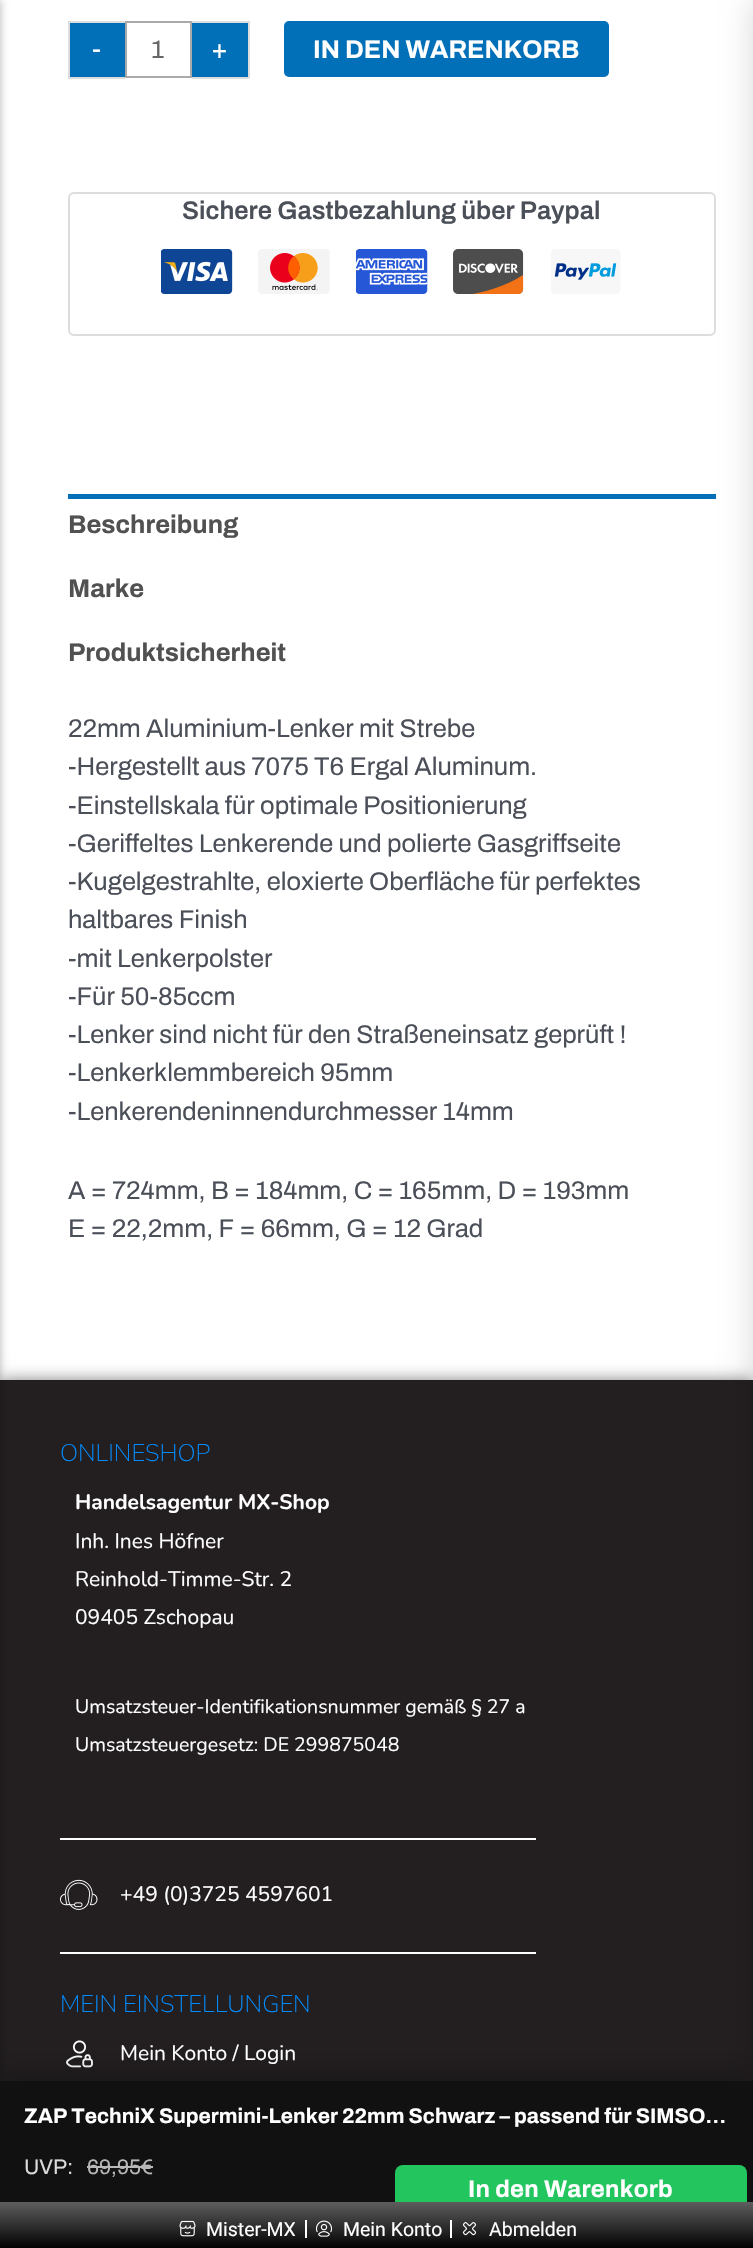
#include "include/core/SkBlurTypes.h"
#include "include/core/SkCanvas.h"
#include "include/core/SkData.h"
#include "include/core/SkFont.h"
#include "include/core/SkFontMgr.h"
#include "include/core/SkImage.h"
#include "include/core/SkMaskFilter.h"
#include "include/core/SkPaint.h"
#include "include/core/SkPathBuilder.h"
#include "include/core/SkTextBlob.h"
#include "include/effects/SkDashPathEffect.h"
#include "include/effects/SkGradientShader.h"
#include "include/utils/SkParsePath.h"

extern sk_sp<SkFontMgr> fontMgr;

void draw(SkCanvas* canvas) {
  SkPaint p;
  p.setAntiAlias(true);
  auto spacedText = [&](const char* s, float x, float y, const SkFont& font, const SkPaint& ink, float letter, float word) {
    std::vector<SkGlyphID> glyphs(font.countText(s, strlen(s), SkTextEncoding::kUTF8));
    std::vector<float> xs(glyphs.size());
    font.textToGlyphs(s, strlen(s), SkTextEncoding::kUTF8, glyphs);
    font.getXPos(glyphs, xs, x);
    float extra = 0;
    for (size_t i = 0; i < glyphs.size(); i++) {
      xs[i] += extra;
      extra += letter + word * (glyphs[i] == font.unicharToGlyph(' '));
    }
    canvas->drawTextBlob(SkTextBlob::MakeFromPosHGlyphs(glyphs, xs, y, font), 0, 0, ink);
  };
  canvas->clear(SK_ColorWHITE);
  p.setColor(SkColorSetARGB(128, 0, 0, 0));
  p.setMaskFilter(SkMaskFilter::MakeBlur(kNormal_SkBlurStyle, 7.5f));
  canvas->drawRect(SkRect::MakeLTRB(0, 1380, 753, 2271), p);
  p.setMaskFilter(nullptr);
  p.setColor(SkColorSetRGB(35, 31, 32));
  canvas->drawRect(SkRect::MakeLTRB(0, 1380, 753, 2081), p);
  p.setColor(SkColorSetARGB(77, 0, 0, 0));
  p.setMaskFilter(SkMaskFilter::MakeBlur(kNormal_SkBlurStyle, 4));
  canvas->drawRect(SkRect::MakeLTRB(-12, 0, 0, 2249), p);
  p.setMaskFilter(nullptr);
  p.setStyle(SkPaint::kStroke_Style);
  p.setStrokeWidth(2);
  p.setColor(SkColorSetRGB(221, 221, 221));
  canvas->drawRoundRect(SkRect::MakeLTRB(69, 193, 715, 335), 5, 5, p);
  p.setStyle(SkPaint::kFill_Style);
  p.setColor(SkColorSetRGB(1, 112, 185));
  canvas->drawRect(SkRect::MakeLTRB(68, 494, 716, 499), p);
  p.setColor(SkColorSetARGB(38, 0, 0, 0));
  p.setMaskFilter(SkMaskFilter::MakeBlur(kNormal_SkBlurStyle, 15));
  canvas->drawRoundRect(SkRect::MakeLTRB(753, 0, 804, 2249), 6, 6, p);
  p.setMaskFilter(nullptr);
  p.setColor(SkColorSetRGB(1, 112, 185));
  canvas->drawRect(SkRect::MakeLTRB(70, 23, 125, 77), p);
  p.setColor(SkColorSetRGB(221, 221, 221));
  canvas->drawRect(SkRect::MakeLTRB(68, 21, 125, 23), p);
  canvas->drawRect(SkRect::MakeLTRB(68, 77, 125, 79), p);
  canvas->drawRect(SkRect::MakeLTRB(68, 21, 70, 78), p);
  p.setStyle(SkPaint::kStroke_Style);
  p.setColor(SkColorSetRGB(170, 170, 170));
  canvas->drawRect(SkRect::MakeLTRB(126, 22, 191, 77), p);
  p.setStyle(SkPaint::kFill_Style);
  p.setColor(SkColorSetRGB(1, 112, 185));
  canvas->drawRect(SkRect::MakeLTRB(192, 23, 248, 77), p);
  p.setColor(SkColorSetRGB(221, 221, 221));
  canvas->drawRect(SkRect::MakeLTRB(192, 21, 249, 23), p);
  canvas->drawRect(SkRect::MakeLTRB(248, 21, 250, 78), p);
  canvas->drawRect(SkRect::MakeLTRB(192, 77, 249, 79), p);
  p.setColor(SkColorSetRGB(1, 112, 185));
  canvas->drawRoundRect(SkRect::MakeLTRB(284, 21, 609, 77), 5, 5, p);
  canvas->drawImageRect(SkImages::DeferredFromEncodedData(SkData::MakeFromFileName("images/1.png")), SkRect::MakeLTRB(161, 249, 233, 294), SkSamplingOptions());
  canvas->drawImageRect(SkImages::DeferredFromEncodedData(SkData::MakeFromFileName("images/2.png")), SkRect::MakeLTRB(258, 249, 330, 294), SkSamplingOptions());
  canvas->drawImageRect(SkImages::DeferredFromEncodedData(SkData::MakeFromFileName("images/3.png")), SkRect::MakeLTRB(356, 249, 428, 294), SkSamplingOptions());
  canvas->drawImageRect(SkImages::DeferredFromEncodedData(SkData::MakeFromFileName("images/4.png")), SkRect::MakeLTRB(453, 249, 524, 294), SkSamplingOptions());
  canvas->drawImageRect(SkImages::DeferredFromEncodedData(SkData::MakeFromFileName("images/5.png")), SkRect::MakeLTRB(551, 249, 621, 294), SkSamplingOptions());
  p.setColor(SK_ColorWHITE);
  canvas->drawRect(SkRect::MakeLTRB(60, 1838, 536, 1840), p);
  canvas->drawImageRect(SkImages::DeferredFromEncodedData(SkData::MakeFromFileName("images/6.png")), SkRect::MakeLTRB(60, 1879, 98, 1910), SkSamplingOptions());
  canvas->drawRect(SkRect::MakeLTRB(60, 1952, 536, 1954), p);
  canvas->drawImageRect(SkImages::DeferredFromEncodedData(SkData::MakeFromFileName("images/7.png")), SkRect::MakeLTRB(66, 2040, 93, 2068), SkSamplingOptions());
  p.setColor(SkColorSetARGB(64, 0, 0, 0));
  p.setMaskFilter(SkMaskFilter::MakeBlur(kNormal_SkBlurStyle, 13.5f));
  canvas->drawRect(SkRect::MakeLTRB(0, 2072, 753, 2240), p);
  p.setMaskFilter(nullptr);
  p.setColor(SkColorSetRGB(17, 17, 17));
  canvas->drawRect(SkRect::MakeLTRB(0, 2081, 753, 2202), p);
  p.setColor(SkColorSetRGB(34, 197, 94));
  canvas->drawRoundRect(SkRect::MakeLTRB(395, 2165, 747, 2214), 8, 8, p);
  {
    const SkColor colors[] = {SkColorSetRGB(94, 94, 94), SK_ColorBLACK};
    const float stops[] = {0, 1};
    const SkPoint ends[] = {{377, 2202}, {377, 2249}};
    p.setShader(SkGradientShader::MakeLinear(ends, colors, stops, 2, SkTileMode::kClamp));
    p.setAlpha(255);
  }
  canvas->drawRect(SkRect::MakeLTRB(0, 2202, 753, 2248), p);
  canvas->drawImageRect(SkImages::DeferredFromEncodedData(SkData::MakeFromFileName("images/8.png")), SkRect::MakeLTRB(179, 2220, 196, 2237), SkSamplingOptions());
  p.setShader(nullptr);
  p.setColor(SK_ColorWHITE);
  canvas->drawRect(SkRect::MakeLTRB(305, 2220, 307, 2238), p);
  canvas->drawImageRect(SkImages::DeferredFromEncodedData(SkData::MakeFromFileName("images/9.png")), SkRect::MakeLTRB(315, 2220, 333, 2237), SkSamplingOptions());
  canvas->drawRect(SkRect::MakeLTRB(450, 2220, 452, 2238), p);
  canvas->drawImageRect(SkImages::DeferredFromEncodedData(SkData::MakeFromFileName("images/10.png")), SkRect::MakeLTRB(462, 2222, 477, 2236), SkSamplingOptions());
  p.setColor(SkColorSetRGB(184, 184, 184));
  canvas->drawRect(SkRect::MakeLTRB(87, 2166, 153, 2168), p);
  SkFont font1(fontMgr->matchFamilyStyle("Archivo", SkFontStyle::Normal()), 27);
  font1.setSubpixel(true);
  p.setColor(SK_ColorWHITE);
  canvas->drawString("-", 92, 58, font1, p);
  SkFont font2(fontMgr->matchFamilyStyle("Archivo", SkFontStyle::Normal()), 25.5f);
  font2.setSubpixel(true);
  p.setColor(SkColorSetRGB(102, 102, 102));
  canvas->drawString("1", 151, 58, font2, p);
  p.setColor(SK_ColorWHITE);
  canvas->drawString("+", 211, 58, font1, p);
  SkFont font3(fontMgr->matchFamilyStyle("Archivo", SkFontStyle::Bold()), 25.5f);
  font3.setSubpixel(true);
  canvas->drawString("IN DEN WARENKORB", 313, 58, font3, p);
  SkFont font4(fontMgr->matchFamilyStyle("Archivo", SkFontStyle(600, SkFontStyle::kNormal_Width, SkFontStyle::kUpright_Slant)), 25.5f);
  font4.setSubpixel(true);
  p.setColor(SkColorSetRGB(75, 79, 88));
  canvas->drawString("Sichere Gastbezahlung über Paypal", 182, 219, font4, p);
  p.setColor(SkColorSetRGB(81, 81, 81));
  canvas->drawString("Beschreibung", 68, 533, font3, p);
  canvas->drawString("Marke", 68, 597, font3, p);
  canvas->drawString("Produktsicherheit", 68, 661, font3, p);
  p.setColor(SkColorSetRGB(75, 79, 88));
  canvas->drawString("22mm Aluminium-Lenker mit Strebe", 68, 737, font2, p);
  canvas->drawString("-Hergestellt aus 7075 T6 Ergal Aluminum.", 68, 775, font2, p);
  canvas->drawString("-Einstellskala für optimale Positionierung", 68, 814, font2, p);
  canvas->drawString("-Geriffeltes Lenkerende und polierte Gasgriffseite", 68, 852, font2, p);
  canvas->drawString("-Kugelgestrahlte, eloxierte Oberfläche für perfektes", 68, 890, font2, p);
  canvas->drawString("haltbares Finish", 68, 928, font2, p);
  canvas->drawString("-mit Lenkerpolster", 68, 967, font2, p);
  canvas->drawString("-Für 50-85ccm", 68, 1005, font2, p);
  canvas->drawString("-Lenker sind nicht für den Straßeneinsatz geprüft !", 68, 1043, font2, p);
  canvas->drawString("-Lenkerklemmbereich 95mm", 68, 1081, font2, p);
  canvas->drawString("-Lenkerendeninnendurchmesser 14mm", 68, 1120, font2, p);
  canvas->drawString("A = 724mm, B = 184mm, C = 165mm, D = 193mm", 68, 1199, font2, p);
  canvas->drawString("E = 22,2mm, F = 66mm, G = 12 Grad", 68, 1237, font2, p);
  SkFont font5(fontMgr->matchFamilyStyle("Nunito", SkFontStyle(200, SkFontStyle::kNormal_Width, SkFontStyle::kUpright_Slant)), 24);
  font5.setSubpixel(true);
  p.setColor(SkColorSetRGB(2, 140, 255));
  canvas->drawString("ONLINESHOP", 60, 1461, font5, p);
  SkFont font6(fontMgr->matchFamilyStyle("Nunito", SkFontStyle::Bold()), 21);
  font6.setSubpixel(true);
  p.setColor(SK_ColorWHITE);
  canvas->drawString("Handelsagentur MX-Shop", 75, 1509, font6, p);
  SkFont font7(fontMgr->matchFamilyStyle("Nunito", SkFontStyle::Normal()), 21);
  font7.setSubpixel(true);
  canvas->drawString("Inh. Ines Höfner", 75, 1548, font7, p);
  canvas->drawString("Reinhold-Timme-Str. 2", 75, 1586, font7, p);
  canvas->drawString("09405 Zschopau", 75, 1624, font7, p);
  SkFont font8(fontMgr->matchFamilyStyle("Nunito", SkFontStyle::Normal()), 19.5f);
  font8.setSubpixel(true);
  canvas->drawString("Umsatzsteuer-Identifikationsnummer gemäß § 27 a", 75, 1713, font8, p);
  canvas->drawString("Umsatzsteuergesetz: DE 299875048", 75, 1751, font8, p);
  canvas->drawString("+49 (0)3725 4597601", 120, 1901, font7, p);
  p.setColor(SkColorSetRGB(2, 140, 255));
  canvas->drawString("MEIN EINSTELLUNGEN", 60, 2012, font5, p);
  p.setColor(SK_ColorWHITE);
  canvas->drawString("Mein Konto / Login", 120, 2060, font7, p);
  SkFont font9(fontMgr->matchFamilyStyle("Roboto", SkFontStyle::Normal()), 19.5f);
  font9.setSubpixel(true);
  canvas->drawString("Mister-MX", 206, 2236, font9, p);
  canvas->drawString("Mein Konto", 343, 2236, font9, p);
  canvas->drawString("Abmelden", 489, 2236, font9, p);
  SkFont font10(fontMgr->matchFamilyStyle("Archivo", SkFontStyle::Bold()), 21);
  font10.setSubpixel(true);
  canvas->drawString("ZAP TechniX Supermini-Lenker 22mm Schwarz – passend für SIMSO…", 24, 2123, font10, p);
  SkFont font11(fontMgr->matchFamilyStyle("Archivo", SkFontStyle::Normal()), 21);
  font11.setSubpixel(true);
  p.setColor(SkColorSetRGB(219, 219, 219));
  canvas->drawString("UVP:", 24, 2174, font11, p);
  p.setColor(SkColorSetRGB(184, 184, 184));
  canvas->drawString("69,95€", 87, 2174, font11, p);
  SkFont font12(fontMgr->matchFamilyStyle("Archivo", SkFontStyle::Bold()), 24);
  font12.setSubpixel(true);
  p.setColor(SK_ColorWHITE);
  spacedText("In den Warenkorb", 468, 2197, font12, p, 0.25f, 0);
}
